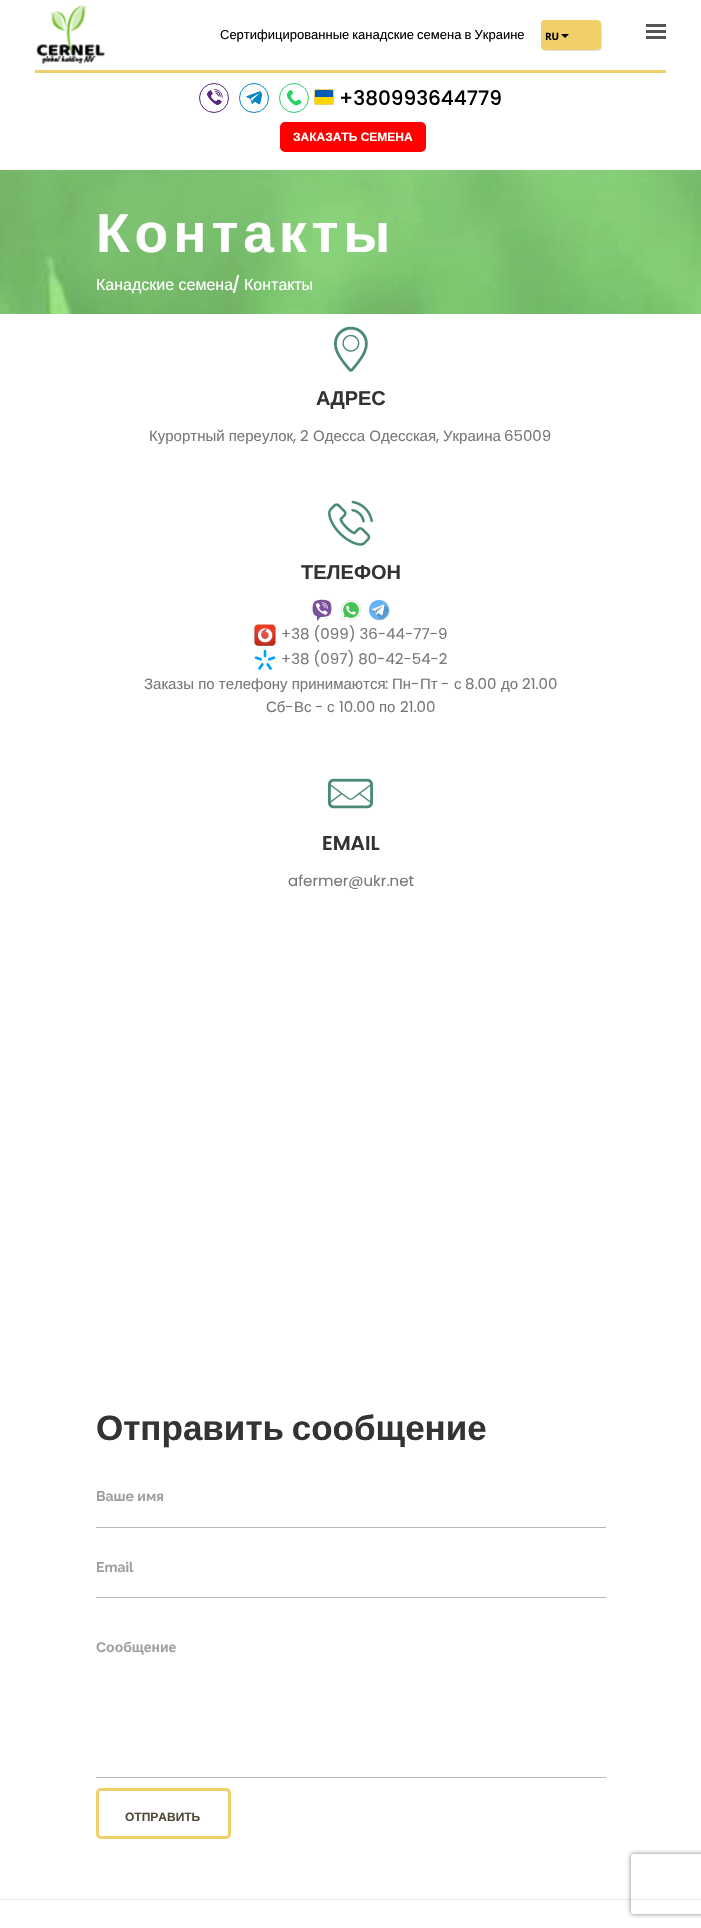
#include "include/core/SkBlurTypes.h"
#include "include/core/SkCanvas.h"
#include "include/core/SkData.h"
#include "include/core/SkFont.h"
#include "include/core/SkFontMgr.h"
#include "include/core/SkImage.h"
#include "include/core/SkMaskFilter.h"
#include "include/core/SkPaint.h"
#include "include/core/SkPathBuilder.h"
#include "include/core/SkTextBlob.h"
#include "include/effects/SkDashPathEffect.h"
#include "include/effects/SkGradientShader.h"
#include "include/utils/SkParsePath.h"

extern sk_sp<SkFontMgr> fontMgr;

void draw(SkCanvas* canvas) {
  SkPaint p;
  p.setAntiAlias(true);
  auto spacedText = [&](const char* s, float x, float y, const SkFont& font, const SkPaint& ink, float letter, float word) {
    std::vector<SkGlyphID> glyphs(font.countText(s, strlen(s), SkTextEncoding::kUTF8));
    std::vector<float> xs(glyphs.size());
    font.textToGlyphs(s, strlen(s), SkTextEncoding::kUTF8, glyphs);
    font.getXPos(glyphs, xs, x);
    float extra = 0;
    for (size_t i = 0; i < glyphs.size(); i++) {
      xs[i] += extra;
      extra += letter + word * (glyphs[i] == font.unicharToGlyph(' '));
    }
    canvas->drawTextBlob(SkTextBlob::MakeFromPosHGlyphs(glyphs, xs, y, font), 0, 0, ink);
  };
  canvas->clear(SK_ColorWHITE);
  p.setColor(SkColorSetRGB(241, 207, 105));
  canvas->drawRect(SkRect::MakeLTRB(35, 70, 666, 73), p);
  canvas->drawImageRect(SkImages::DeferredFromEncodedData(SkData::MakeFromFileName("images/1.png")), SkRect::MakeLTRB(36, 4, 105, 65), SkSamplingOptions());
  p.setColor(SkColorSetRGB(224, 224, 224));
  canvas->drawPath(SkPathBuilder().moveTo(543, 49).cubicTo(543, 50, 545, 51, 546, 51).lineTo(598, 51).cubicTo(600, 51, 602, 49, 602, 47).lineTo(602, 25).cubicTo(602, 24, 601, 22, 600, 22).lineTo(601, 24).lineTo(601, 46).cubicTo(601, 48, 599, 50, 597, 50).lineTo(545, 50).close().detach(), p);
  p.setColor(SkColorSetRGB(241, 207, 105));
  canvas->drawRoundRect(SkRect::MakeLTRB(541, 20, 601, 50), 4, 4, p);
  canvas->drawRect(SkRect::MakeLTRB(543, 20, 545, 50), p);
  p.setColor(SK_ColorBLACK);
  canvas->drawPath(SkPathBuilder().moveTo(561, 34).lineTo(569, 34).lineTo(565, 38).close().detach(), p);
  p.setColor(SkColorSetRGB(85, 85, 85));
  canvas->drawRect(SkRect::MakeLTRB(646, 30, 666, 33), p);
  canvas->drawRect(SkRect::MakeLTRB(646, 24, 666, 27), p);
  canvas->drawRect(SkRect::MakeLTRB(646, 36, 666, 39), p);
  p.setStyle(SkPaint::kStroke_Style);
  p.setStrokeWidth(1);
  p.setColor(SkColorSetRGB(89, 38, 124));
  canvas->drawCircle(214, 98, 14.5f, p);
  canvas->drawImageRect(SkImages::DeferredFromEncodedData(SkData::MakeFromFileName("images/2.png")), SkRect::MakeLTRB(206, 89, 223, 106), SkSamplingOptions());
  p.setColor(SkColorSetRGB(0, 136, 204));
  canvas->drawCircle(254, 98, 14.5f, p);
  canvas->drawImageRect(SkImages::DeferredFromEncodedData(SkData::MakeFromFileName("images/3.png")), SkRect::MakeLTRB(246, 91, 263, 105), SkSamplingOptions());
  p.setColor(SkColorSetRGB(37, 211, 102));
  canvas->drawCircle(294, 98, 14.5f, p);
  canvas->drawImageRect(SkImages::DeferredFromEncodedData(SkData::MakeFromFileName("images/4.png")), SkRect::MakeLTRB(286, 89, 302, 106), SkSamplingOptions());
  p.setColor(SkColorSetRGB(241, 207, 105));
  canvas->drawRoundRect(SkRect::MakeLTRB(314.5f, 89.5f, 333.5f, 104.5f), 1.5f, 1.5f, p);
  p.setStyle(SkPaint::kFill_Style);
  p.setColor(SkColorSetRGB(255, 213, 0));
  canvas->drawRoundRect(SkRect::MakeLTRB(315, 90, 333, 104), 1, 1, p);
  p.setColor(SkColorSetRGB(0, 91, 187));
  canvas->drawPath(SkPathBuilder().moveTo(316, 90).lineTo(332, 90).cubicTo(332.5f, 90, 333, 90.5f, 333, 91).lineTo(333, 97).lineTo(315, 97).lineTo(315, 91).cubicTo(315, 90.5f, 315.5f, 90, 316, 90).close().detach(), p);
  p.setColor(SkColorSetRGB(254, 0, 0));
  canvas->drawRoundRect(SkRect::MakeLTRB(281.5f, 123.5f, 424.5f, 150.5f), 3.5f, 3.5f, p);
  p.setStyle(SkPaint::kStroke_Style);
  p.setStrokeWidth(3);
  canvas->drawRoundRect(SkRect::MakeLTRB(281.5f, 123.5f, 424.5f, 150.5f), 3.5f, 3.5f, p);
  canvas->drawImageRect(SkImages::DeferredFromEncodedData(SkData::MakeFromFileName("images/5.png")), SkRect::MakeLTRB(0, 170, 701, 314), SkSamplingOptions());
  p.setStyle(SkPaint::kFill_Style);
  p.setColor(SkColorSetRGB(233, 233, 233));
  canvas->drawRect(SkRect::MakeLTRB(0, 1899, 701, 1900), p);
  canvas->drawImageRect(SkImages::DeferredFromEncodedData(SkData::MakeFromFileName("images/6.png")), SkRect::MakeLTRB(334, 326, 368, 372), SkSamplingOptions());
  canvas->drawImageRect(SkImages::DeferredFromEncodedData(SkData::MakeFromFileName("images/7.png")), SkRect::MakeLTRB(328, 500, 373, 546), SkSamplingOptions());
  canvas->drawImageRect(SkImages::DeferredFromEncodedData(SkData::MakeFromFileName("images/8.png")), SkRect::MakeLTRB(310, 599, 333, 622), SkSamplingOptions());
  canvas->drawImageRect(SkImages::DeferredFromEncodedData(SkData::MakeFromFileName("images/9.png")), SkRect::MakeLTRB(341, 600, 361, 620), SkSamplingOptions());
  canvas->drawImageRect(SkImages::DeferredFromEncodedData(SkData::MakeFromFileName("images/10.png")), SkRect::MakeLTRB(368, 599, 390, 621), SkSamplingOptions());
  canvas->drawImageRect(SkImages::DeferredFromEncodedData(SkData::MakeFromFileName("images/11.png")), SkRect::MakeLTRB(254, 624, 276, 646), SkSamplingOptions());
  canvas->drawImageRect(SkImages::DeferredFromEncodedData(SkData::MakeFromFileName("images/12.png")), SkRect::MakeLTRB(254, 649, 276, 670), SkSamplingOptions());
  canvas->drawImageRect(SkImages::DeferredFromEncodedData(SkData::MakeFromFileName("images/13.png")), SkRect::MakeLTRB(328, 778, 373, 809), SkSamplingOptions());
  p.setColor(SkColorSetRGB(183, 183, 183));
  canvas->drawRect(SkRect::MakeLTRB(96, 1527, 606, 1528), p);
  canvas->drawRect(SkRect::MakeLTRB(96, 1597, 606, 1598), p);
  canvas->drawRect(SkRect::MakeLTRB(96, 1777, 606, 1778), p);
  p.setStyle(SkPaint::kStroke_Style);
  p.setColor(SkColorSetRGB(241, 207, 105));
  canvas->drawRoundRect(SkRect::MakeLTRB(97.5f, 1789.5f, 229.5f, 1837.5f), 3.5f, 3.5f, p);
  canvas->save();
  canvas->clipPath(SkPathBuilder(SkPathFillType::kEvenOdd).moveTo(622, 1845).lineTo(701, 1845).lineTo(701, 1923).lineTo(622, 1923).close().moveTo(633, 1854).lineTo(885, 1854).cubicTo(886, 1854, 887, 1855, 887, 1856).lineTo(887, 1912).cubicTo(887, 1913, 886, 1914, 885, 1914).lineTo(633, 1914).cubicTo(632, 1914, 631, 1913, 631, 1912).lineTo(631, 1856).cubicTo(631, 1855, 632, 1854, 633, 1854).close().detach(), true);
  p.setStyle(SkPaint::kFill_Style);
  p.setColor(SkColorSetRGB(128, 128, 128));
  p.setMaskFilter(SkMaskFilter::MakeBlur(kNormal_SkBlurStyle, 2.5f));
  canvas->drawRoundRect(SkRect::MakeLTRB(631, 1854, 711, 1914), 2, 2, p);
  p.setMaskFilter(nullptr);
  canvas->restore();
  SkFont font1(fontMgr->matchFamilyStyle("Liberation Sans", SkFontStyle::Normal()), 13);
  font1.setSubpixel(true);
  p.setColor(SK_ColorBLACK);
  spacedText("Сертифицированные канадские семена в Украине", 220, 39, font1, p, 0, -0.5f);
  SkFont font2(fontMgr->matchFamilyStyle("Open Sans", SkFontStyle::Bold()), 10);
  font2.setSubpixel(true);
  canvas->drawString("RU", 545, 40, font2, p);
  SkFont font3(fontMgr->matchFamilyStyle("Poppins", SkFontStyle(500, SkFontStyle::kNormal_Width, SkFontStyle::kUpright_Slant)), 20);
  font3.setSubpixel(true);
  canvas->drawString("+380993644779", 339, 105, font3, p);
  SkFont font4(fontMgr->matchFamilyStyle("Liberation Sans", SkFontStyle::Bold()), 12);
  font4.setSubpixel(true);
  p.setColor(SK_ColorWHITE);
  canvas->drawString("ЗАКАЗАТЬ СЕМЕНА", 293, 141, font4, p);
  SkFont font5(fontMgr->matchFamilyStyle("Liberation Sans", SkFontStyle::Bold()), 55);
  font5.setSubpixel(true);
  spacedText("Контакты", 96, 252, font5, p, 5, 0);
  SkFont font6(fontMgr->matchFamilyStyle("Liberation Sans", SkFontStyle::Normal()), 16);
  font6.setSubpixel(true);
  canvas->drawString("Канадские семена", 96, 290, font6, p);
  SkFont font7(fontMgr->matchFamilyStyle("Poppins", SkFontStyle(500, SkFontStyle::kNormal_Width, SkFontStyle::kUpright_Slant)), 16);
  font7.setSubpixel(true);
  canvas->drawString("/", 232, 290, font7, p);
  canvas->drawString("Контакты", 244, 290, font6, p);
  SkFont font8(fontMgr->matchFamilyStyle("Liberation Sans", SkFontStyle::Bold()), 20);
  font8.setSubpixel(true);
  p.setColor(SkColorSetRGB(51, 51, 51));
  canvas->drawString("АДРЕС", 316, 405, font8, p);
  SkFont font9(fontMgr->matchFamilyStyle("Liberation Sans", SkFontStyle::Normal()), 15);
  font9.setSubpixel(true);
  p.setColor(SkColorSetRGB(119, 119, 119));
  canvas->drawString("Курортный переулок", 149, 441, font9, p);
  SkFont font10(fontMgr->matchFamilyStyle("Poppins", SkFontStyle::Normal()), 15);
  font10.setSubpixel(true);
  canvas->drawString(", 2", 293, 441, font10, p);
  canvas->drawString("Одесса Одесская", 313, 441, font9, p);
  canvas->drawString(",", 436, 441, font10, p);
  canvas->drawString("Украина", 443, 441, font9, p);
  canvas->drawString("65009", 504, 441, font10, p);
  p.setColor(SkColorSetRGB(51, 51, 51));
  canvas->drawString("ТЕЛЕФОН", 301, 579, font8, p);
  p.setColor(SkColorSetRGB(119, 119, 119));
  canvas->drawString("+38 (099) 36-44-77-9", 281, 639, font10, p);
  canvas->drawString("+38 (097) 80-42-54-2", 281, 664, font10, p);
  canvas->drawString("Заказы по телефону принимаются", 144, 689, font9, p);
  canvas->drawString(":", 385, 689, font10, p);
  canvas->drawString("Пн", 392, 689, font9, p);
  canvas->drawString("-", 411, 689, font10, p);
  canvas->drawString("Пт", 420, 689, font9, p);
  canvas->drawString("-", 441, 689, font10, p);
  canvas->drawString("с", 454, 689, font9, p);
  canvas->drawString("8.00", 465, 689, font10, p);
  canvas->drawString("до", 501, 689, font9, p);
  canvas->drawString("21.00", 522, 689, font10, p);
  canvas->drawString("Сб", 266, 712, font9, p);
  canvas->drawString("-", 285, 712, font10, p);
  canvas->drawString("Вс", 294, 712, font9, p);
  canvas->drawString("-", 315, 712, font10, p);
  canvas->drawString("с", 327, 712, font9, p);
  canvas->drawString("10.00", 339, 712, font10, p);
  canvas->drawString("по", 379, 712, font9, p);
  canvas->drawString("21.00", 400, 712, font10, p);
  SkFont font11(fontMgr->matchFamilyStyle("Poppins", SkFontStyle(600, SkFontStyle::kNormal_Width, SkFontStyle::kUpright_Slant)), 20);
  font11.setSubpixel(true);
  p.setColor(SkColorSetRGB(51, 51, 51));
  canvas->drawString("EMAIL", 322, 850, font11, p);
  p.setColor(SkColorSetRGB(119, 119, 119));
  canvas->drawString("afermer@ukr.net", 288, 886, font10, p);
  SkFont font12(fontMgr->matchFamilyStyle("Liberation Sans", SkFontStyle::Bold()), 35);
  font12.setSubpixel(true);
  p.setColor(SkColorSetRGB(51, 51, 51));
  spacedText("Отправить сообщение", 96, 1440, font12, p, 0, -2);
  SkFont font13(fontMgr->matchFamilyStyle("Raleway", SkFontStyle::Bold()), 14);
  font13.setSubpixel(true);
  p.setColor(SkColorSetRGB(159, 159, 159));
  canvas->drawString("Ваше имя", 96, 1501, font13, p);
  canvas->drawString("Email", 96, 1572, font13, p);
  SkFont font14(fontMgr->matchFamilyStyle("Liberation Sans", SkFontStyle::Bold()), 14);
  font14.setSubpixel(true);
  canvas->drawString("Сообщение", 96, 1652, font14, p);
  p.setColor(SkColorSetRGB(80, 73, 53));
  canvas->drawString("ОТПРАВИТЬ", 125, 1821, font4, p);
}
